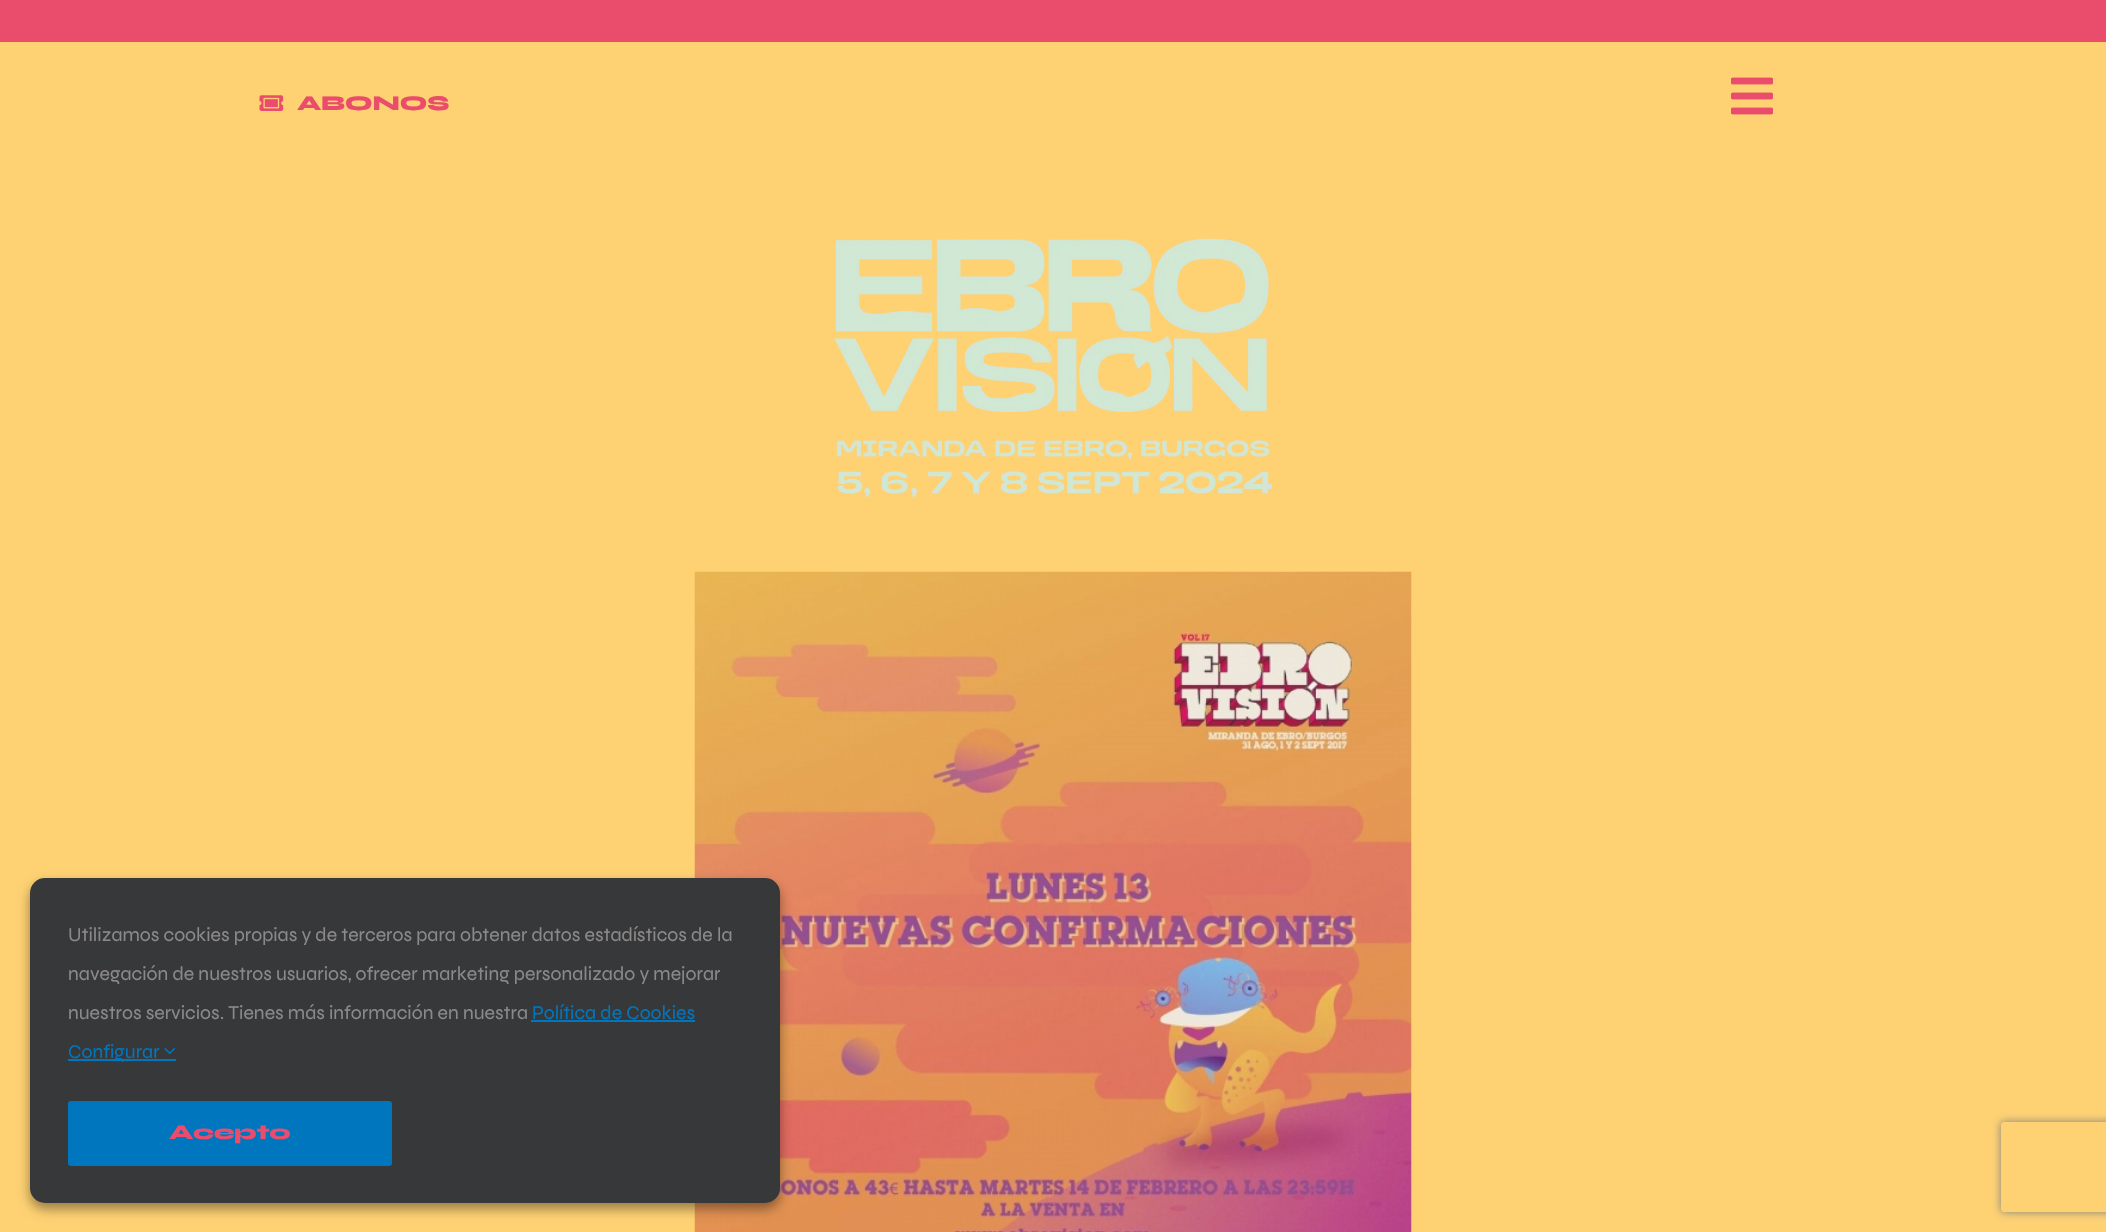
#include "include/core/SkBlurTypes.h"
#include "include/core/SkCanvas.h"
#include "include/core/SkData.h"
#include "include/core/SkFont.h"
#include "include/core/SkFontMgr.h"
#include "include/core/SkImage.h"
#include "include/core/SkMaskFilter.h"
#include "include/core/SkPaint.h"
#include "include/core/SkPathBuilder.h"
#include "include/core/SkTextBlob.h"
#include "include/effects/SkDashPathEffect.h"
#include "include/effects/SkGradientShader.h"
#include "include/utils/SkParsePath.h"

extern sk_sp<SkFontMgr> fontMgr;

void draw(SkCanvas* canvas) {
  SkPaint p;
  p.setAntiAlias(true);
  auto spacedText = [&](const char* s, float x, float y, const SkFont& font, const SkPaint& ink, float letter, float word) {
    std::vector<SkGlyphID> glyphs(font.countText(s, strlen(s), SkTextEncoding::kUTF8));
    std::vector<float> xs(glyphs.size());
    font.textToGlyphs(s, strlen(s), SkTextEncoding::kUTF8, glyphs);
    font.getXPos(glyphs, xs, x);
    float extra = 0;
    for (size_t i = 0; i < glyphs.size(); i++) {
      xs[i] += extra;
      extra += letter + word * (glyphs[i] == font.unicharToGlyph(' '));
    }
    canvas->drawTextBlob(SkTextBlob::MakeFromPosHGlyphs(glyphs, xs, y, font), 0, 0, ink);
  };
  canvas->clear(SkColorSetRGB(234, 76, 108));
  p.setColor(SkColorSetRGB(254, 209, 115));
  canvas->drawRect(SkRect::MakeLTRB(0, 42, 2106, 1232), p);
  canvas->drawImageRect(SkImages::DeferredFromEncodedData(SkData::MakeFromFileName("images/1.png")), SkRect::MakeLTRB(259, 95, 284, 111), SkSamplingOptions());
  canvas->drawImageRect(SkImages::DeferredFromEncodedData(SkData::MakeFromFileName("images/2.png")), SkRect::MakeLTRB(1731, 77, 1773, 115), SkSamplingOptions());
  canvas->drawImageRect(SkImages::DeferredFromEncodedData(SkData::MakeFromFileName("images/3.png")), SkRect::MakeLTRB(834, 238, 1272, 497), SkSamplingOptions());
  canvas->drawImageRect(SkImages::DeferredFromEncodedData(SkData::MakeFromFileName("images/4.png")), SkRect::MakeLTRB(694, 571, 1412, 1232), SkSamplingOptions());
  p.setColor(SkColorSetARGB(102, 0, 0, 0));
  p.setMaskFilter(SkMaskFilter::MakeBlur(kNormal_SkBlurStyle, 6));
  canvas->drawRoundRect(SkRect::MakeLTRB(30, 884, 780, 1209), 15, 15, p);
  p.setMaskFilter(nullptr);
  p.setColor(SkColorSetRGB(54, 56, 57));
  canvas->drawRoundRect(SkRect::MakeLTRB(30, 878, 780, 1203), 15, 15, p);
  p.setColor(SkColorSetRGB(0, 118, 190));
  canvas->drawRect(SkRect::MakeLTRB(531, 1020, 695, 1022), p);
  canvas->drawRect(SkRect::MakeLTRB(68, 1059, 176, 1061), p);
  canvas->drawImageRect(SkImages::DeferredFromEncodedData(SkData::MakeFromFileName("images/5.png")), SkRect::MakeLTRB(164, 1047, 176, 1055), SkSamplingOptions());
  canvas->drawRoundRect(SkRect::MakeLTRB(68, 1101, 392, 1166), 3, 3, p);
  canvas->save();
  canvas->clipPath(SkPathBuilder(SkPathFillType::kEvenOdd).moveTo(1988, 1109).lineTo(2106, 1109).lineTo(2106, 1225).lineTo(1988, 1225).close().moveTo(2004, 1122).lineTo(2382, 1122).cubicTo(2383.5f, 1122, 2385, 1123.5f, 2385, 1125).lineTo(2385, 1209).cubicTo(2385, 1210.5f, 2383.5f, 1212, 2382, 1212).lineTo(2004, 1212).cubicTo(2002.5f, 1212, 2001, 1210.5f, 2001, 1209).lineTo(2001, 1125).cubicTo(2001, 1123.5f, 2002.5f, 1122, 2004, 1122).close().detach(), true);
  p.setColor(SkColorSetRGB(128, 128, 128));
  p.setMaskFilter(SkMaskFilter::MakeBlur(kNormal_SkBlurStyle, 4));
  canvas->drawRoundRect(SkRect::MakeLTRB(2001, 1122, 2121, 1212), 3, 3, p);
  p.setMaskFilter(nullptr);
  canvas->restore();
  SkFont font1(fontMgr->matchFamilyStyle("Syne", SkFontStyle(800, SkFontStyle::kNormal_Width, SkFontStyle::kUpright_Slant)), 21);
  font1.setSubpixel(true);
  p.setColor(SkColorSetRGB(234, 76, 108));
  spacedText("ABONOS", 297, 110, font1, p, -0.25f, 0);
  SkFont font2(fontMgr->matchFamilyStyle("Syne", SkFontStyle::Normal()), 19.5f);
  font2.setSubpixel(true);
  p.setColor(SkColorSetRGB(140, 137, 137));
  canvas->drawString("Utilizamos cookies propias y de terceros para obtener datos estadísticos de la", 68, 941, font2, p);
  canvas->drawString("navegación de nuestros usuarios, ofrecer marketing personalizado y mejorar", 68, 980, font2, p);
  canvas->drawString("nuestros servicios. Tienes más información en nuestra", 68, 1019, font2, p);
  p.setColor(SkColorSetRGB(0, 118, 190));
  canvas->drawString("Política de Cookies", 532, 1019, font2, p);
  canvas->drawString("Configurar", 68, 1058, font2, p);
  p.setColor(SkColorSetRGB(234, 76, 108));
  spacedText("Acepto", 169, 1139, font1, p, -0.25f, 0);
}
